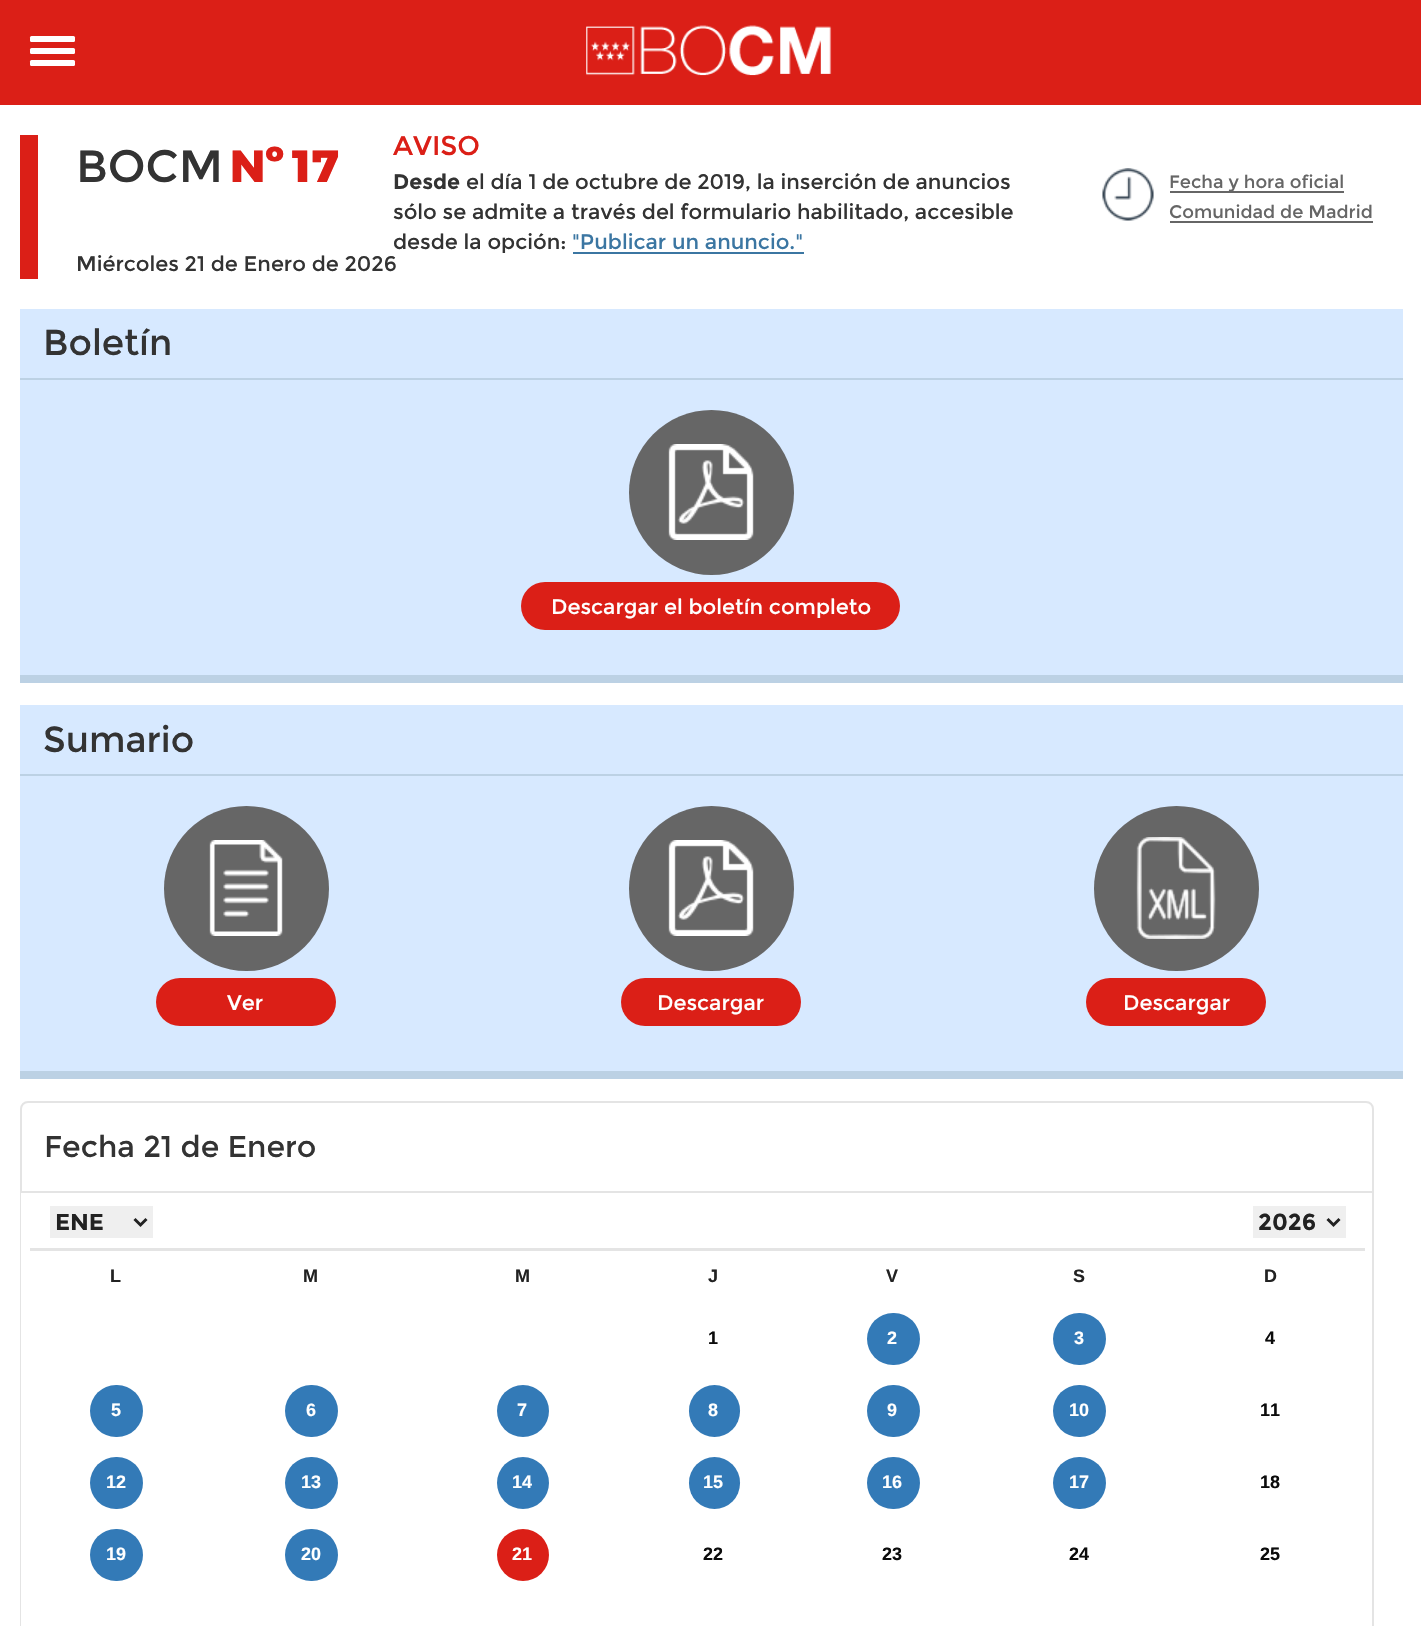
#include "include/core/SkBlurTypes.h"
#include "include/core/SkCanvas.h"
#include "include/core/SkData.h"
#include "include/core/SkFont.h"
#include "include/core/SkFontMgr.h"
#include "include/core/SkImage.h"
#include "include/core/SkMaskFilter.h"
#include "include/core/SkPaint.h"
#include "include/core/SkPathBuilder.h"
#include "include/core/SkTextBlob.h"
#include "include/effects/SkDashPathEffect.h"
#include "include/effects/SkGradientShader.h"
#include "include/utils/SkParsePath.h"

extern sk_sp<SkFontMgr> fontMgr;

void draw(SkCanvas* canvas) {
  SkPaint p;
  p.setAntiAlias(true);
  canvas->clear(SK_ColorWHITE);
  p.setColor(SkColorSetRGB(219, 31, 23));
  canvas->drawRect(SkRect::MakeLTRB(0, 0, 1421, 105), p);
  p.setColor(SK_ColorWHITE);
  canvas->drawRoundRect(SkRect::MakeLTRB(30, 36, 75, 42), 1.5f, 1.5f, p);
  canvas->drawRoundRect(SkRect::MakeLTRB(30, 48, 75, 54), 1.5f, 1.5f, p);
  canvas->drawRoundRect(SkRect::MakeLTRB(30, 60, 75, 66), 1.5f, 1.5f, p);
  canvas->drawImageRect(SkImages::DeferredFromEncodedData(SkData::MakeFromFileName("images/1.png")), SkRect::MakeLTRB(586, 25, 832, 76), SkSamplingOptions());
  p.setColor(SkColorSetRGB(59, 118, 162));
  canvas->drawRect(SkRect::MakeLTRB(573, 252, 804, 254), p);
  p.setColor(SkColorSetRGB(219, 31, 23));
  canvas->drawRect(SkRect::MakeLTRB(20, 135, 38, 279), p);
  p.setColor(SkColorSetRGB(215, 233, 255));
  canvas->drawRect(SkRect::MakeLTRB(20, 309, 1403, 675), p);
  p.setColor(SkColorSetRGB(188, 209, 228));
  canvas->drawRect(SkRect::MakeLTRB(20, 675, 1403, 683), p);
  canvas->drawRect(SkRect::MakeLTRB(20, 378, 1403, 380), p);
  p.setColor(SkColorSetRGB(102, 102, 102));
  canvas->drawCircle(711.5f, 492.5f, 82.5f, p);
  canvas->drawImageRect(SkImages::DeferredFromEncodedData(SkData::MakeFromFileName("images/2.png")), SkRect::MakeLTRB(668, 444, 754, 540), SkSamplingOptions());
  p.setColor(SkColorSetRGB(219, 31, 23));
  canvas->drawRoundRect(SkRect::MakeLTRB(521, 582, 900, 630), 24, 24, p);
  p.setColor(SkColorSetRGB(215, 233, 255));
  canvas->drawRect(SkRect::MakeLTRB(20, 705, 1403, 1071), p);
  p.setColor(SkColorSetRGB(188, 209, 228));
  canvas->drawRect(SkRect::MakeLTRB(20, 1071, 1403, 1079), p);
  canvas->drawRect(SkRect::MakeLTRB(20, 774, 1403, 776), p);
  p.setColor(SkColorSetRGB(102, 102, 102));
  canvas->drawCircle(246.5f, 888.5f, 82.5f, p);
  canvas->drawImageRect(SkImages::DeferredFromEncodedData(SkData::MakeFromFileName("images/3.png")), SkRect::MakeLTRB(209, 840, 283, 936), SkSamplingOptions());
  p.setColor(SkColorSetRGB(219, 31, 23));
  canvas->drawRoundRect(SkRect::MakeLTRB(156, 978, 336, 1026), 24, 24, p);
  p.setColor(SkColorSetRGB(102, 102, 102));
  canvas->drawCircle(711.5f, 888.5f, 82.5f, p);
  canvas->drawImageRect(SkImages::DeferredFromEncodedData(SkData::MakeFromFileName("images/2.png")), SkRect::MakeLTRB(668, 840, 754, 936), SkSamplingOptions());
  p.setColor(SkColorSetRGB(219, 31, 23));
  canvas->drawRoundRect(SkRect::MakeLTRB(621, 978, 801, 1026), 24, 24, p);
  p.setColor(SkColorSetRGB(102, 102, 102));
  canvas->drawCircle(1176.5f, 888.5f, 82.5f, p);
  canvas->drawImageRect(SkImages::DeferredFromEncodedData(SkData::MakeFromFileName("images/4.png")), SkRect::MakeLTRB(1136, 837, 1216, 939), SkSamplingOptions());
  p.setColor(SkColorSetRGB(219, 31, 23));
  canvas->drawRoundRect(SkRect::MakeLTRB(1086, 978, 1266, 1026), 24, 24, p);
  canvas->drawImageRect(SkImages::DeferredFromEncodedData(SkData::MakeFromFileName("images/5.png")), SkRect::MakeLTRB(1102, 168, 1154, 221), SkSamplingOptions());
  p.setColor(SkColorSetRGB(102, 102, 102));
  canvas->drawRect(SkRect::MakeLTRB(1170, 191, 1344, 193), p);
  canvas->drawRect(SkRect::MakeLTRB(1170, 221, 1373, 223), p);
  p.setStyle(SkPaint::kStroke_Style);
  p.setStrokeWidth(2);
  p.setColor(SkColorSetRGB(228, 228, 228));
  canvas->drawPath(SkPathBuilder().moveTo(28, 1102).lineTo(1366, 1102).cubicTo(1370, 1102, 1373, 1105, 1373, 1109).lineTo(1373, 1192).lineTo(21, 1192).lineTo(21, 1109).cubicTo(21, 1105, 24, 1102, 28, 1102).close().detach(), p);
  p.setStyle(SkPaint::kFill_Style);
  canvas->drawPath(SkPathBuilder().moveTo(1374, 1192).lineTo(1374, 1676).lineTo(1372, 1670).lineTo(1372, 1192).close().detach(), p);
  canvas->drawPath(SkPathBuilder().moveTo(20, 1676).lineTo(20, 1192).lineTo(21, 1192).lineTo(21, 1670).close().detach(), p);
  canvas->drawRect(SkRect::MakeLTRB(30, 1248, 1365, 1251), p);
  p.setColor(SkColorSetRGB(239, 239, 239));
  canvas->drawRect(SkRect::MakeLTRB(50, 1206, 153, 1238), p);
  p.setStyle(SkPaint::kStroke_Style);
  p.setStrokeWidth(3);
  p.setColor(SkColorSetRGB(34, 34, 34));
  canvas->drawPath(SkPathBuilder().moveTo(134.5f, 1219).lineTo(140.5f, 1225).lineTo(146.5f, 1219).detach(), p);
  p.setStyle(SkPaint::kFill_Style);
  p.setColor(SkColorSetRGB(239, 239, 239));
  canvas->drawRect(SkRect::MakeLTRB(1253, 1206, 1346, 1238), p);
  p.setStyle(SkPaint::kStroke_Style);
  p.setColor(SkColorSetRGB(34, 34, 34));
  canvas->drawPath(SkPathBuilder().moveTo(1327.5f, 1219).lineTo(1333.5f, 1225).lineTo(1339.5f, 1219).detach(), p);
  p.setStyle(SkPaint::kFill_Style);
  p.setColor(SkColorSetRGB(51, 122, 183));
  canvas->drawRoundRect(SkRect::MakeLTRB(867, 1313, 920, 1365), 26, 26, p);
  canvas->drawRoundRect(SkRect::MakeLTRB(1053, 1313, 1106, 1365), 26, 26, p);
  canvas->drawRoundRect(SkRect::MakeLTRB(90, 1385, 143, 1437), 26, 26, p);
  canvas->drawRoundRect(SkRect::MakeLTRB(285, 1385, 338, 1437), 26, 26, p);
  canvas->drawCircle(523, 1411, 26, p);
  canvas->drawRoundRect(SkRect::MakeLTRB(689, 1385, 740, 1437), 25.5f, 25.5f, p);
  canvas->drawRoundRect(SkRect::MakeLTRB(867, 1385, 920, 1437), 26, 26, p);
  canvas->drawRoundRect(SkRect::MakeLTRB(1053, 1385, 1106, 1437), 26, 26, p);
  canvas->drawRoundRect(SkRect::MakeLTRB(90, 1457, 143, 1509), 26, 26, p);
  canvas->drawRoundRect(SkRect::MakeLTRB(285, 1457, 338, 1509), 26, 26, p);
  canvas->drawCircle(523, 1483, 26, p);
  canvas->drawRoundRect(SkRect::MakeLTRB(689, 1457, 740, 1509), 25.5f, 25.5f, p);
  canvas->drawRoundRect(SkRect::MakeLTRB(867, 1457, 920, 1509), 26, 26, p);
  canvas->drawRoundRect(SkRect::MakeLTRB(1053, 1457, 1106, 1509), 26, 26, p);
  canvas->drawRoundRect(SkRect::MakeLTRB(90, 1529, 143, 1581), 26, 26, p);
  canvas->drawRoundRect(SkRect::MakeLTRB(285, 1529, 338, 1581), 26, 26, p);
  p.setColor(SkColorSetRGB(219, 31, 23));
  canvas->drawCircle(523, 1555, 26, p);
  SkFont font1(fontMgr->matchFamilyStyle("Montserrat", SkFontStyle::Normal()), 27);
  font1.setSubpixel(true);
  canvas->drawString("AVISO", 393, 155, font1, p);
  SkFont font2(fontMgr->matchFamilyStyle("Montserrat", SkFontStyle::Bold()), 21);
  font2.setSubpixel(true);
  p.setColor(SkColorSetRGB(51, 51, 51));
  canvas->drawString("Desde", 393, 189, font2, p);
  SkFont font3(fontMgr->matchFamilyStyle("Montserrat", SkFontStyle::Normal()), 21);
  font3.setSubpixel(true);
  canvas->drawString("el día 1 de octubre de 2019, la inserción de anuncios", 466, 189, font3, p);
  canvas->drawString("sólo se admite a través del formulario habilitado, accesible", 393, 219, font3, p);
  canvas->drawString("desde la opción:", 393, 249, font3, p);
  p.setColor(SkColorSetRGB(59, 118, 162));
  canvas->drawString("\"Publicar un anuncio.\"", 572, 249, font3, p);
  SkFont font4(fontMgr->matchFamilyStyle("Montserrat", SkFontStyle::Normal()), 45);
  font4.setSubpixel(true);
  p.setColor(SkColorSetRGB(51, 51, 51));
  canvas->drawString("BOCM", 76, 182, font4, p);
  SkFont font5(fontMgr->matchFamilyStyle("Montserrat", SkFontStyle(800, SkFontStyle::kNormal_Width, SkFontStyle::kUpright_Slant)), 45);
  font5.setSubpixel(true);
  p.setColor(SkColorSetRGB(219, 31, 23));
  canvas->drawString("Nº", 230, 182, font5, p);
  canvas->drawString("17", 292, 182, font5, p);
  p.setColor(SkColorSetRGB(51, 51, 51));
  canvas->drawString("Miércoles 21 de Enero de 2026", 76, 271, font3, p);
  SkFont font6(fontMgr->matchFamilyStyle("Montserrat", SkFontStyle::Normal()), 36);
  font6.setSubpixel(true);
  canvas->drawString("Boletín", 43, 355, font6, p);
  p.setColor(SK_ColorWHITE);
  canvas->drawString("Descargar el boletín completo", 551, 614, font3, p);
  p.setColor(SkColorSetRGB(51, 51, 51));
  canvas->drawString("Sumario", 43, 752, font6, p);
  p.setColor(SK_ColorWHITE);
  canvas->drawString("Ver", 227, 1010, font3, p);
  canvas->drawString("Descargar", 657, 1010, font3, p);
  canvas->drawString("Descargar", 1123, 1010, font3, p);
  SkFont font7(fontMgr->matchFamilyStyle("Montserrat", SkFontStyle::Normal()), 18);
  font7.setSubpixel(true);
  p.setColor(SkColorSetRGB(102, 102, 102));
  canvas->drawString("Fecha y hora oficial", 1169, 188, font7, p);
  canvas->drawString("Comunidad de Madrid", 1169, 218, font7, p);
  SkFont font8(fontMgr->matchFamilyStyle("Montserrat", SkFontStyle::Normal()), 30);
  font8.setSubpixel(true);
  p.setColor(SkColorSetRGB(51, 51, 51));
  canvas->drawString("Fecha 21 de Enero", 44, 1157, font8, p);
  SkFont font9(fontMgr->matchFamilyStyle("Montserrat", SkFontStyle::Bold()), 23);
  font9.setSubpixel(true);
  p.setColor(SkColorSetRGB(34, 34, 34));
  canvas->drawString("ENE", 55, 1230, font9, p);
  canvas->drawString("2026", 1258, 1230, font9, p);
  SkFont font10(fontMgr->matchFamilyStyle("Liberation Sans", SkFontStyle::Bold()), 18);
  font10.setSubpixel(true);
  canvas->drawString("L", 110, 1282, font10, p);
  canvas->drawString("M", 303, 1282, font10, p);
  canvas->drawString("M", 515, 1282, font10, p);
  canvas->drawString("J", 708, 1282, font10, p);
  canvas->drawString("V", 886, 1282, font10, p);
  canvas->drawString("S", 1073, 1282, font10, p);
  canvas->drawString("D", 1264, 1282, font10, p);
  p.setColor(SkColorSetRGB(12, 12, 12));
  canvas->drawString("1", 708, 1344, font10, p);
  p.setColor(SK_ColorWHITE);
  canvas->drawString("2", 887, 1344, font10, p);
  canvas->drawString("3", 1074, 1344, font10, p);
  p.setColor(SkColorSetRGB(12, 12, 12));
  canvas->drawString("4", 1265, 1344, font10, p);
  p.setColor(SK_ColorWHITE);
  canvas->drawString("5", 111, 1416, font10, p);
  canvas->drawString("6", 306, 1416, font10, p);
  canvas->drawString("7", 517, 1416, font10, p);
  canvas->drawString("8", 708, 1416, font10, p);
  canvas->drawString("9", 887, 1416, font10, p);
  canvas->drawString("10", 1069, 1416, font10, p);
  p.setColor(SkColorSetRGB(12, 12, 12));
  canvas->drawString("11", 1260, 1416, font10, p);
  p.setColor(SK_ColorWHITE);
  canvas->drawString("12", 106, 1488, font10, p);
  canvas->drawString("13", 301, 1488, font10, p);
  canvas->drawString("14", 512, 1488, font10, p);
  canvas->drawString("15", 703, 1488, font10, p);
  canvas->drawString("16", 882, 1488, font10, p);
  canvas->drawString("17", 1069, 1488, font10, p);
  p.setColor(SkColorSetRGB(12, 12, 12));
  canvas->drawString("18", 1260, 1488, font10, p);
  p.setColor(SK_ColorWHITE);
  canvas->drawString("19", 106, 1560, font10, p);
  canvas->drawString("20", 301, 1560, font10, p);
  canvas->drawString("21", 512, 1560, font10, p);
  p.setColor(SkColorSetRGB(12, 12, 12));
  canvas->drawString("22", 703, 1560, font10, p);
  canvas->drawString("23", 882, 1560, font10, p);
  canvas->drawString("24", 1069, 1560, font10, p);
  canvas->drawString("25", 1260, 1560, font10, p);
}
